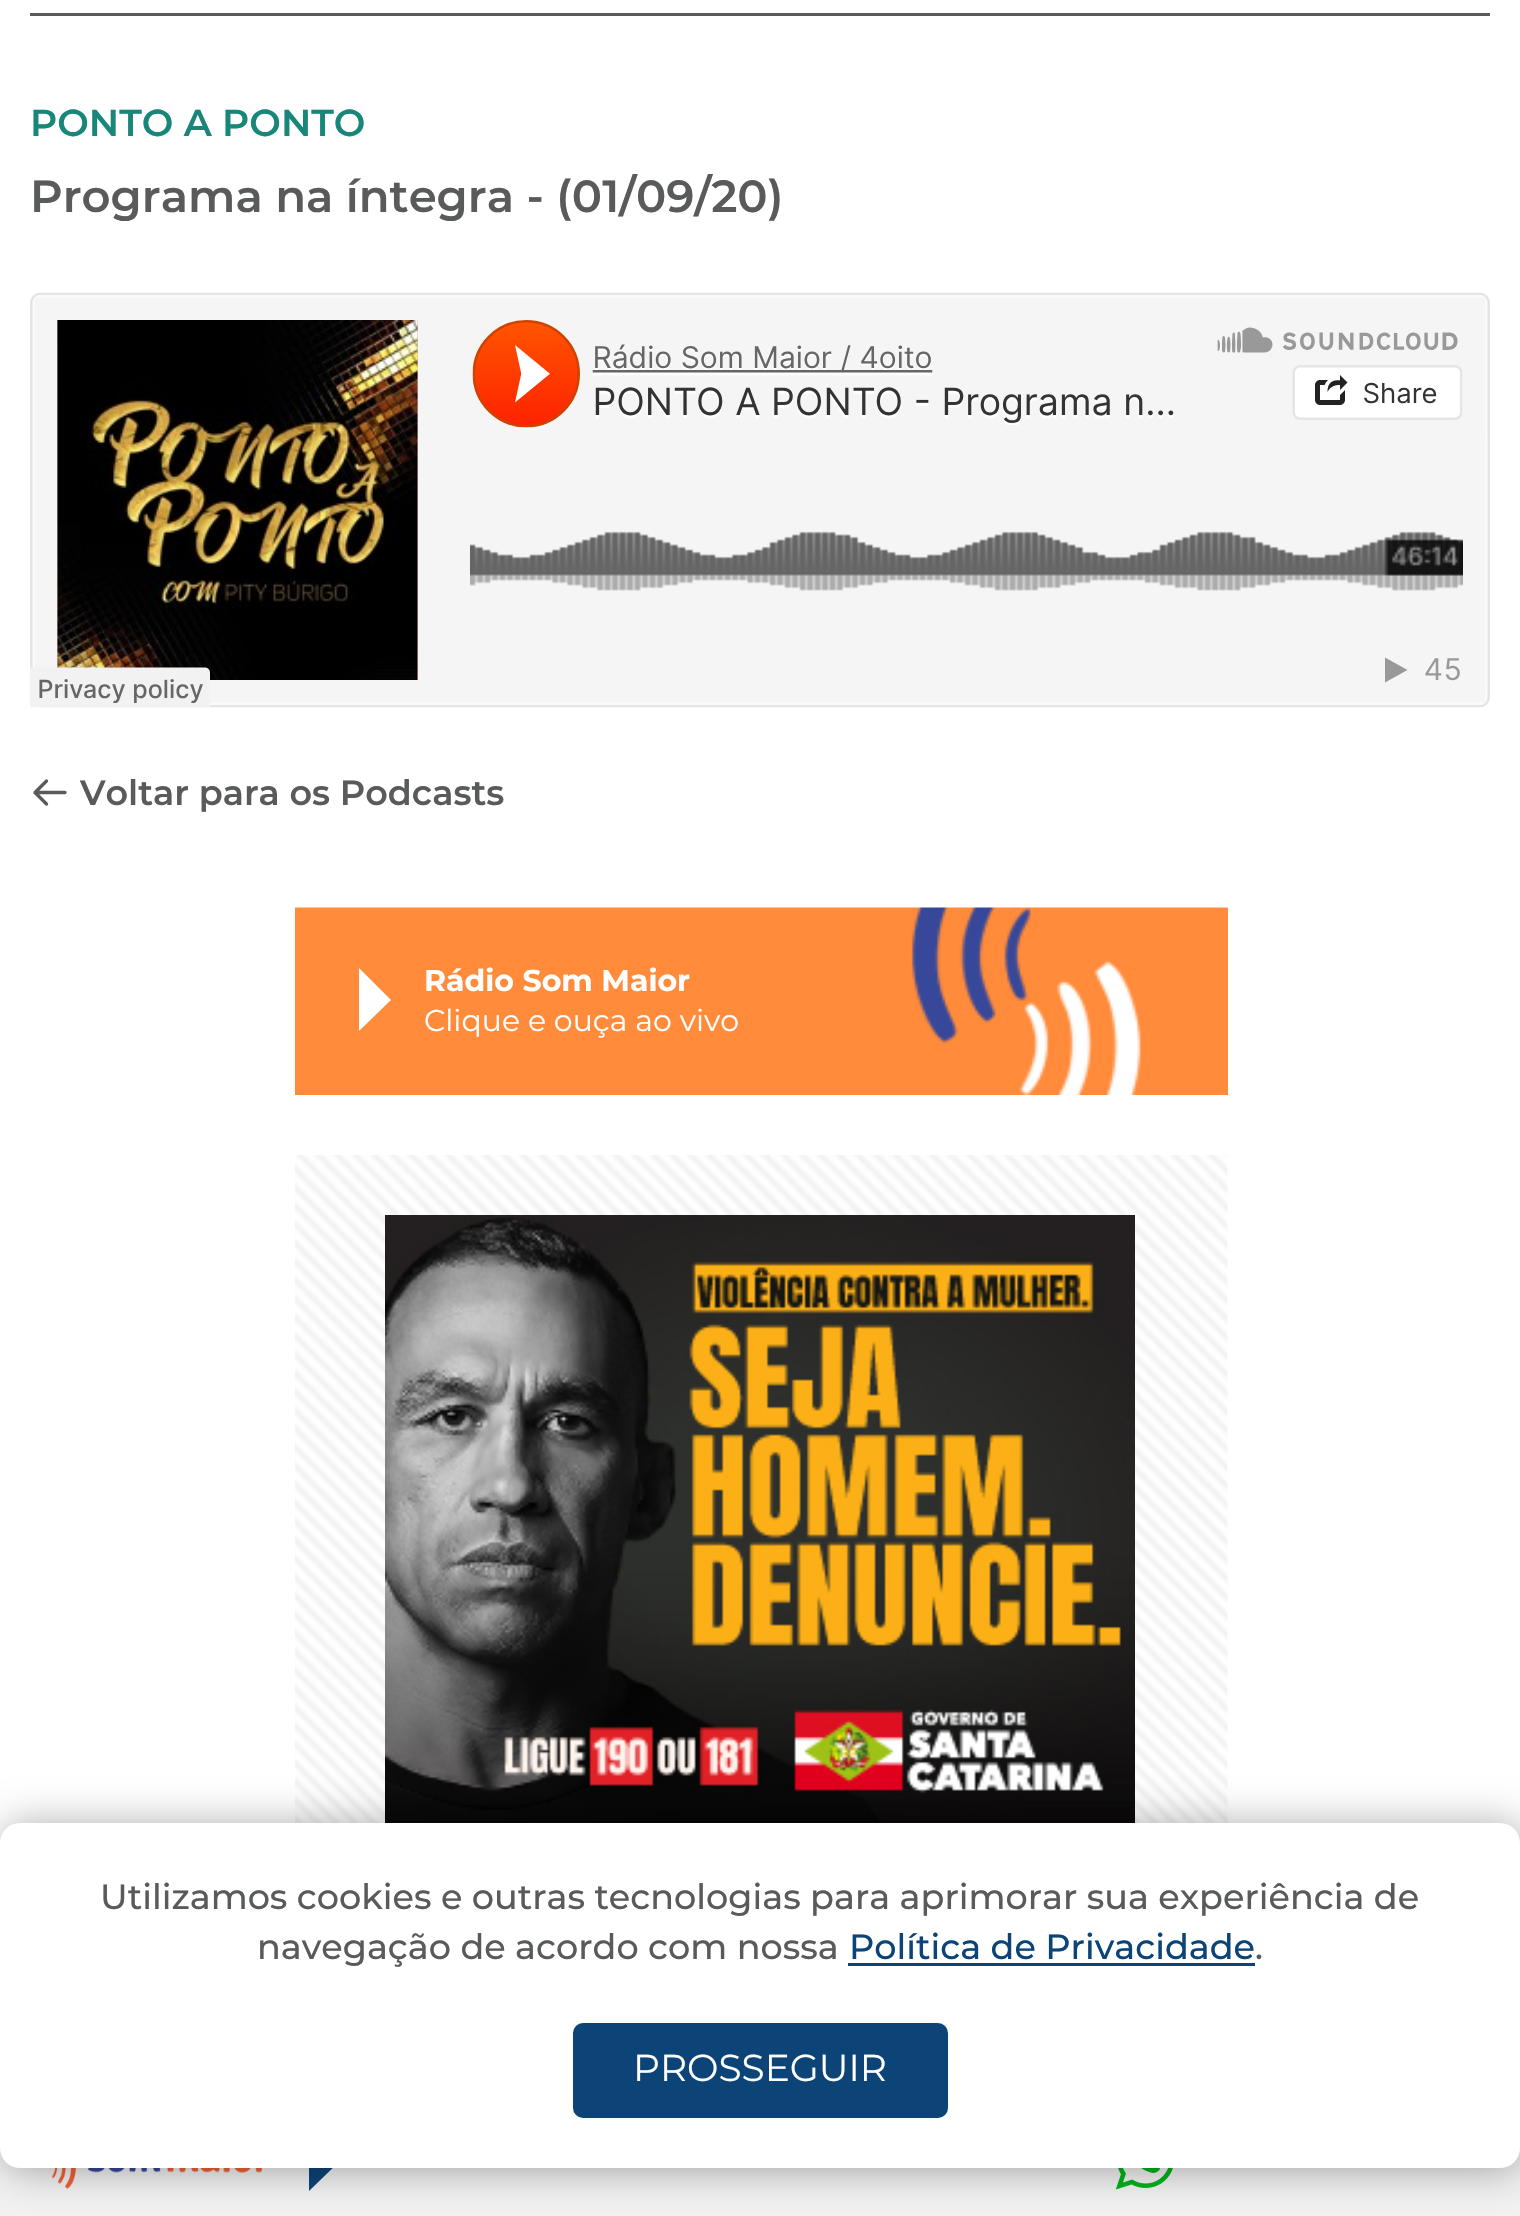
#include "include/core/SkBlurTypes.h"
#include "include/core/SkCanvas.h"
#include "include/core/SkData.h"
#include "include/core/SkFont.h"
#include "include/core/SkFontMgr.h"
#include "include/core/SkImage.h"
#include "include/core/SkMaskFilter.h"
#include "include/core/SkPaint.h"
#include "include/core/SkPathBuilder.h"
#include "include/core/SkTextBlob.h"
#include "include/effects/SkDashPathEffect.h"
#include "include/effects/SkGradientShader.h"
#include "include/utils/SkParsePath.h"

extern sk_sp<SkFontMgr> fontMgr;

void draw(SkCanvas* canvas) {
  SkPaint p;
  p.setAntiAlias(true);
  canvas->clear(SK_ColorWHITE);
  p.setColor(SkColorSetRGB(89, 90, 90));
  canvas->drawRect(SkRect::MakeLTRB(30, 13, 1490, 16), p);
  canvas->drawImageRect(SkImages::DeferredFromEncodedData(SkData::MakeFromFileName("images/1.png")), SkRect::MakeLTRB(30, 292, 1490, 708), SkSamplingOptions());
  p.setStyle(SkPaint::kStroke_Style);
  p.setStrokeWidth(3.3f);
  p.setStrokeCap(SkPaint::kRound_Cap);
  p.setStrokeJoin(SkPaint::kRound_Join);
  canvas->drawPath(SkPathBuilder().moveTo(46.5f, 804).lineTo(35, 792.5f).moveTo(35, 792.5f).lineTo(46.5f, 781).moveTo(35, 792.5f).lineTo(65, 792.5f).detach(), p);
  p.setStyle(SkPaint::kFill_Style);
  p.setColor(SkColorSetRGB(255, 139, 59));
  canvas->drawRect(SkRect::MakeLTRB(1227, 908, 1228, 1095), p);
  canvas->drawImageRect(SkImages::DeferredFromEncodedData(SkData::MakeFromFileName("images/2.png")), SkRect::MakeLTRB(295, 907, 1228, 1095), SkSamplingOptions());
  p.setColor(SK_ColorWHITE);
  canvas->drawPath(SkPathBuilder().moveTo(359, 968).lineTo(359, 1031).lineTo(391, 1000).close().detach(), p);
  canvas->drawImageRect(SkImages::DeferredFromEncodedData(SkData::MakeFromFileName("images/3.png")), SkRect::MakeLTRB(295, 1155, 1228, 1823), SkSamplingOptions());
  canvas->drawImageRect(SkImages::DeferredFromEncodedData(SkData::MakeFromFileName("images/4.png")), SkRect::MakeLTRB(385, 1215, 1135, 1823), SkSamplingOptions());
  p.setColor(SkColorSetRGB(243, 242, 242));
  canvas->drawRect(SkRect::MakeLTRB(0, 2148, 1520, 2216), p);
  canvas->drawImageRect(SkImages::DeferredFromEncodedData(SkData::MakeFromFileName("images/5.png")), SkRect::MakeLTRB(51, 2168, 263, 2189), SkSamplingOptions());
  p.setColor(SkColorSetRGB(12, 68, 119));
  canvas->drawPath(SkPathBuilder().moveTo(309, 2128).lineTo(309, 2191).lineTo(341, 2160).close().detach(), p);
  canvas->drawImageRect(SkImages::DeferredFromEncodedData(SkData::MakeFromFileName("images/6.png")), SkRect::MakeLTRB(1115, 2168, 1173, 2190), SkSamplingOptions());
  p.setColor(SkColorSetARGB(87, 0, 0, 0));
  p.setMaskFilter(SkMaskFilter::MakeBlur(kNormal_SkBlurStyle, 21));
  canvas->drawRoundRect(SkRect::MakeLTRB(3, 1825, 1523, 2170), 20, 20, p);
  p.setMaskFilter(nullptr);
  p.setColor(SK_ColorWHITE);
  canvas->drawRoundRect(SkRect::MakeLTRB(0, 1823, 1520, 2168), 20, 20, p);
  p.setColor(SkColorSetRGB(12, 68, 119));
  canvas->drawRect(SkRect::MakeLTRB(848, 1963, 1255, 1966), p);
  canvas->drawRoundRect(SkRect::MakeLTRB(573, 2023, 948, 2118), 10, 10, p);
  SkFont font1(fontMgr->matchFamilyStyle("Montserrat", SkFontStyle(600, SkFontStyle::kNormal_Width, SkFontStyle::kUpright_Slant)), 37.5f);
  font1.setSubpixel(true);
  p.setColor(SkColorSetRGB(24, 134, 121));
  canvas->drawString("PONTO A PONTO", 30, 136, font1, p);
  SkFont font2(fontMgr->matchFamilyStyle("Montserrat", SkFontStyle(600, SkFontStyle::kNormal_Width, SkFontStyle::kUpright_Slant)), 45);
  font2.setSubpixel(true);
  p.setColor(SkColorSetRGB(89, 90, 90));
  canvas->drawString("Programa na íntegra - (01/09/20)", 30, 212, font2, p);
  SkFont font3(fontMgr->matchFamilyStyle("Montserrat", SkFontStyle(600, SkFontStyle::kNormal_Width, SkFontStyle::kUpright_Slant)), 35);
  font3.setSubpixel(true);
  canvas->drawString("Voltar para os Podcasts", 80, 805, font3, p);
  SkFont font4(fontMgr->matchFamilyStyle("Montserrat", SkFontStyle::Bold()), 30);
  font4.setSubpixel(true);
  p.setColor(SK_ColorWHITE);
  canvas->drawString("Rádio Som Maior", 424, 991, font4, p);
  SkFont font5(fontMgr->matchFamilyStyle("Montserrat", SkFontStyle::Normal()), 30);
  font5.setSubpixel(true);
  canvas->drawString("Clique e ouça ao vivo", 424, 1031, font5, p);
  SkFont font6(fontMgr->matchFamilyStyle("Montserrat", SkFontStyle(500, SkFontStyle::kNormal_Width, SkFontStyle::kUpright_Slant)), 35);
  font6.setSubpixel(true);
  p.setColor(SkColorSetRGB(89, 90, 90));
  canvas->drawString("Utilizamos cookies e outras tecnologias para aprimorar sua experiência de", 100, 1909, font6, p);
  canvas->drawString("navegação de acordo com nossa", 257, 1959, font6, p);
  p.setColor(SkColorSetRGB(12, 68, 119));
  canvas->drawString("Política de Privacidade", 849, 1959, font6, p);
  p.setColor(SkColorSetRGB(89, 90, 90));
  canvas->drawString(".", 1255, 1959, font6, p);
  SkFont font7(fontMgr->matchFamilyStyle("Montserrat", SkFontStyle::Normal()), 37.5f);
  font7.setSubpixel(true);
  p.setColor(SK_ColorWHITE);
  canvas->drawString("PROSSEGUIR", 633, 2081, font7, p);
}
